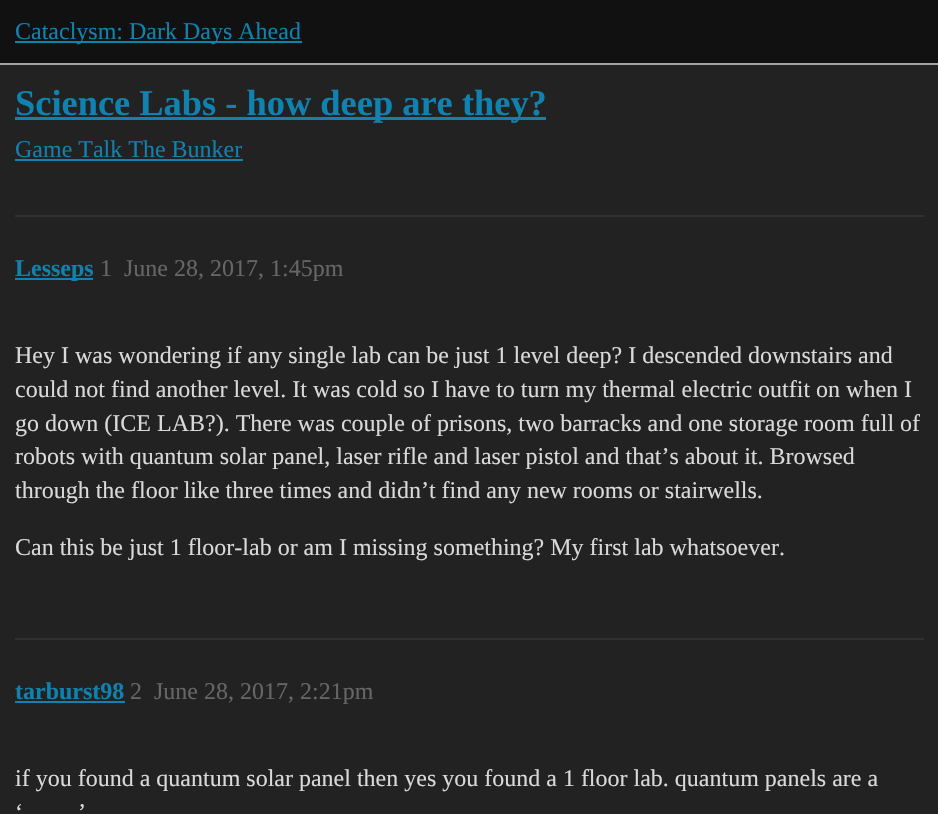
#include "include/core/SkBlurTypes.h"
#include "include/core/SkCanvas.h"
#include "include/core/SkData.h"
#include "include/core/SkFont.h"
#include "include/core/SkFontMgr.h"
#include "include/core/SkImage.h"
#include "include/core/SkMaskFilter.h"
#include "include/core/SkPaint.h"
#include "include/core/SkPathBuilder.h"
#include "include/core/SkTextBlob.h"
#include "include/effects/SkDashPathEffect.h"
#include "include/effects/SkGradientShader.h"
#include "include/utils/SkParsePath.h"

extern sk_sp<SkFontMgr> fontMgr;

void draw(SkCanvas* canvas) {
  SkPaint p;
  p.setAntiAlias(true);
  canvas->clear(SkColorSetRGB(34, 34, 34));
  p.setColor(SkColorSetRGB(17, 17, 17));
  canvas->drawRect(SkRect::MakeLTRB(0, 0, 938, 63), p);
  p.setColor(SkColorSetRGB(164, 164, 164));
  canvas->drawRect(SkRect::MakeLTRB(0, 63, 938, 65), p);
  p.setColor(SkColorSetRGB(15, 130, 175));
  canvas->drawRect(SkRect::MakeLTRB(15, 41, 302, 43), p);
  canvas->drawRect(SkRect::MakeLTRB(15, 117, 546, 120), p);
  canvas->drawRect(SkRect::MakeLTRB(15, 159, 243, 161), p);
  p.setColor(SkColorSetRGB(48, 48, 48));
  canvas->drawRect(SkRect::MakeLTRB(15, 215, 924, 217), p);
  p.setColor(SkColorSetRGB(15, 130, 175));
  canvas->drawRect(SkRect::MakeLTRB(15, 278, 93, 280), p);
  p.setColor(SkColorSetRGB(48, 48, 48));
  canvas->drawRect(SkRect::MakeLTRB(15, 638, 924, 640), p);
  p.setColor(SkColorSetRGB(15, 130, 175));
  canvas->drawRect(SkRect::MakeLTRB(15, 701, 125, 703), p);
  SkFont font1(fontMgr->matchFamilyStyle("Liberation Serif", SkFontStyle::Normal()), 24);
  font1.setSubpixel(true);
  canvas->drawString("Cataclysm: Dark Days Ahead", 15, 39, font1, p);
  SkFont font2(fontMgr->matchFamilyStyle("Liberation Serif", SkFontStyle::Bold()), 36.4f);
  font2.setSubpixel(true);
  canvas->drawString("Science Labs - how deep are they?", 15, 115, font2, p);
  canvas->drawString("Game Talk The Bunker", 15, 157, font1, p);
  SkFont font3(fontMgr->matchFamilyStyle("Liberation Serif", SkFontStyle::Bold()), 24);
  font3.setSubpixel(true);
  canvas->drawString("Lesseps", 15, 276, font3, p);
  p.setColor(SkColorSetRGB(102, 102, 102));
  canvas->drawString("1", 100, 276, font1, p);
  canvas->drawString("June 28, 2017, 1:45pm", 124, 276, font1, p);
  p.setColor(SkColorSetRGB(217, 217, 217));
  canvas->drawString("Hey I was wondering if any single lab can be just 1 level deep? I descended downstairs and", 15, 363, font1, p);
  canvas->drawString("could not find another level. It was cold so I have to turn my thermal electric outfit on when I", 15, 397, font1, p);
  canvas->drawString("go down (ICE LAB?). There was couple of prisons, two barracks and one storage room full of", 15, 431, font1, p);
  canvas->drawString("robots with quantum solar panel, laser rifle and laser pistol and that’s about it. Browsed", 15, 464, font1, p);
  canvas->drawString("through the floor like three times and didn’t find any new rooms or stairwells.", 15, 498, font1, p);
  canvas->drawString("Can this be just 1 floor-lab or am I missing something? My first lab whatsoever.", 15, 555, font1, p);
  p.setColor(SkColorSetRGB(15, 130, 175));
  canvas->drawString("tarburst98", 15, 699, font3, p);
  p.setColor(SkColorSetRGB(102, 102, 102));
  canvas->drawString("2", 130, 699, font1, p);
  canvas->drawString("June 28, 2017, 2:21pm", 154, 699, font1, p);
  p.setColor(SkColorSetRGB(217, 217, 217));
  canvas->drawString("if you found a quantum solar panel then yes you found a 1 floor lab. quantum panels are a", 15, 786, font1, p);
  canvas->drawString("‘", 15, 820, font1, p);
  canvas->drawString("’", 78, 820, font1, p);
}
